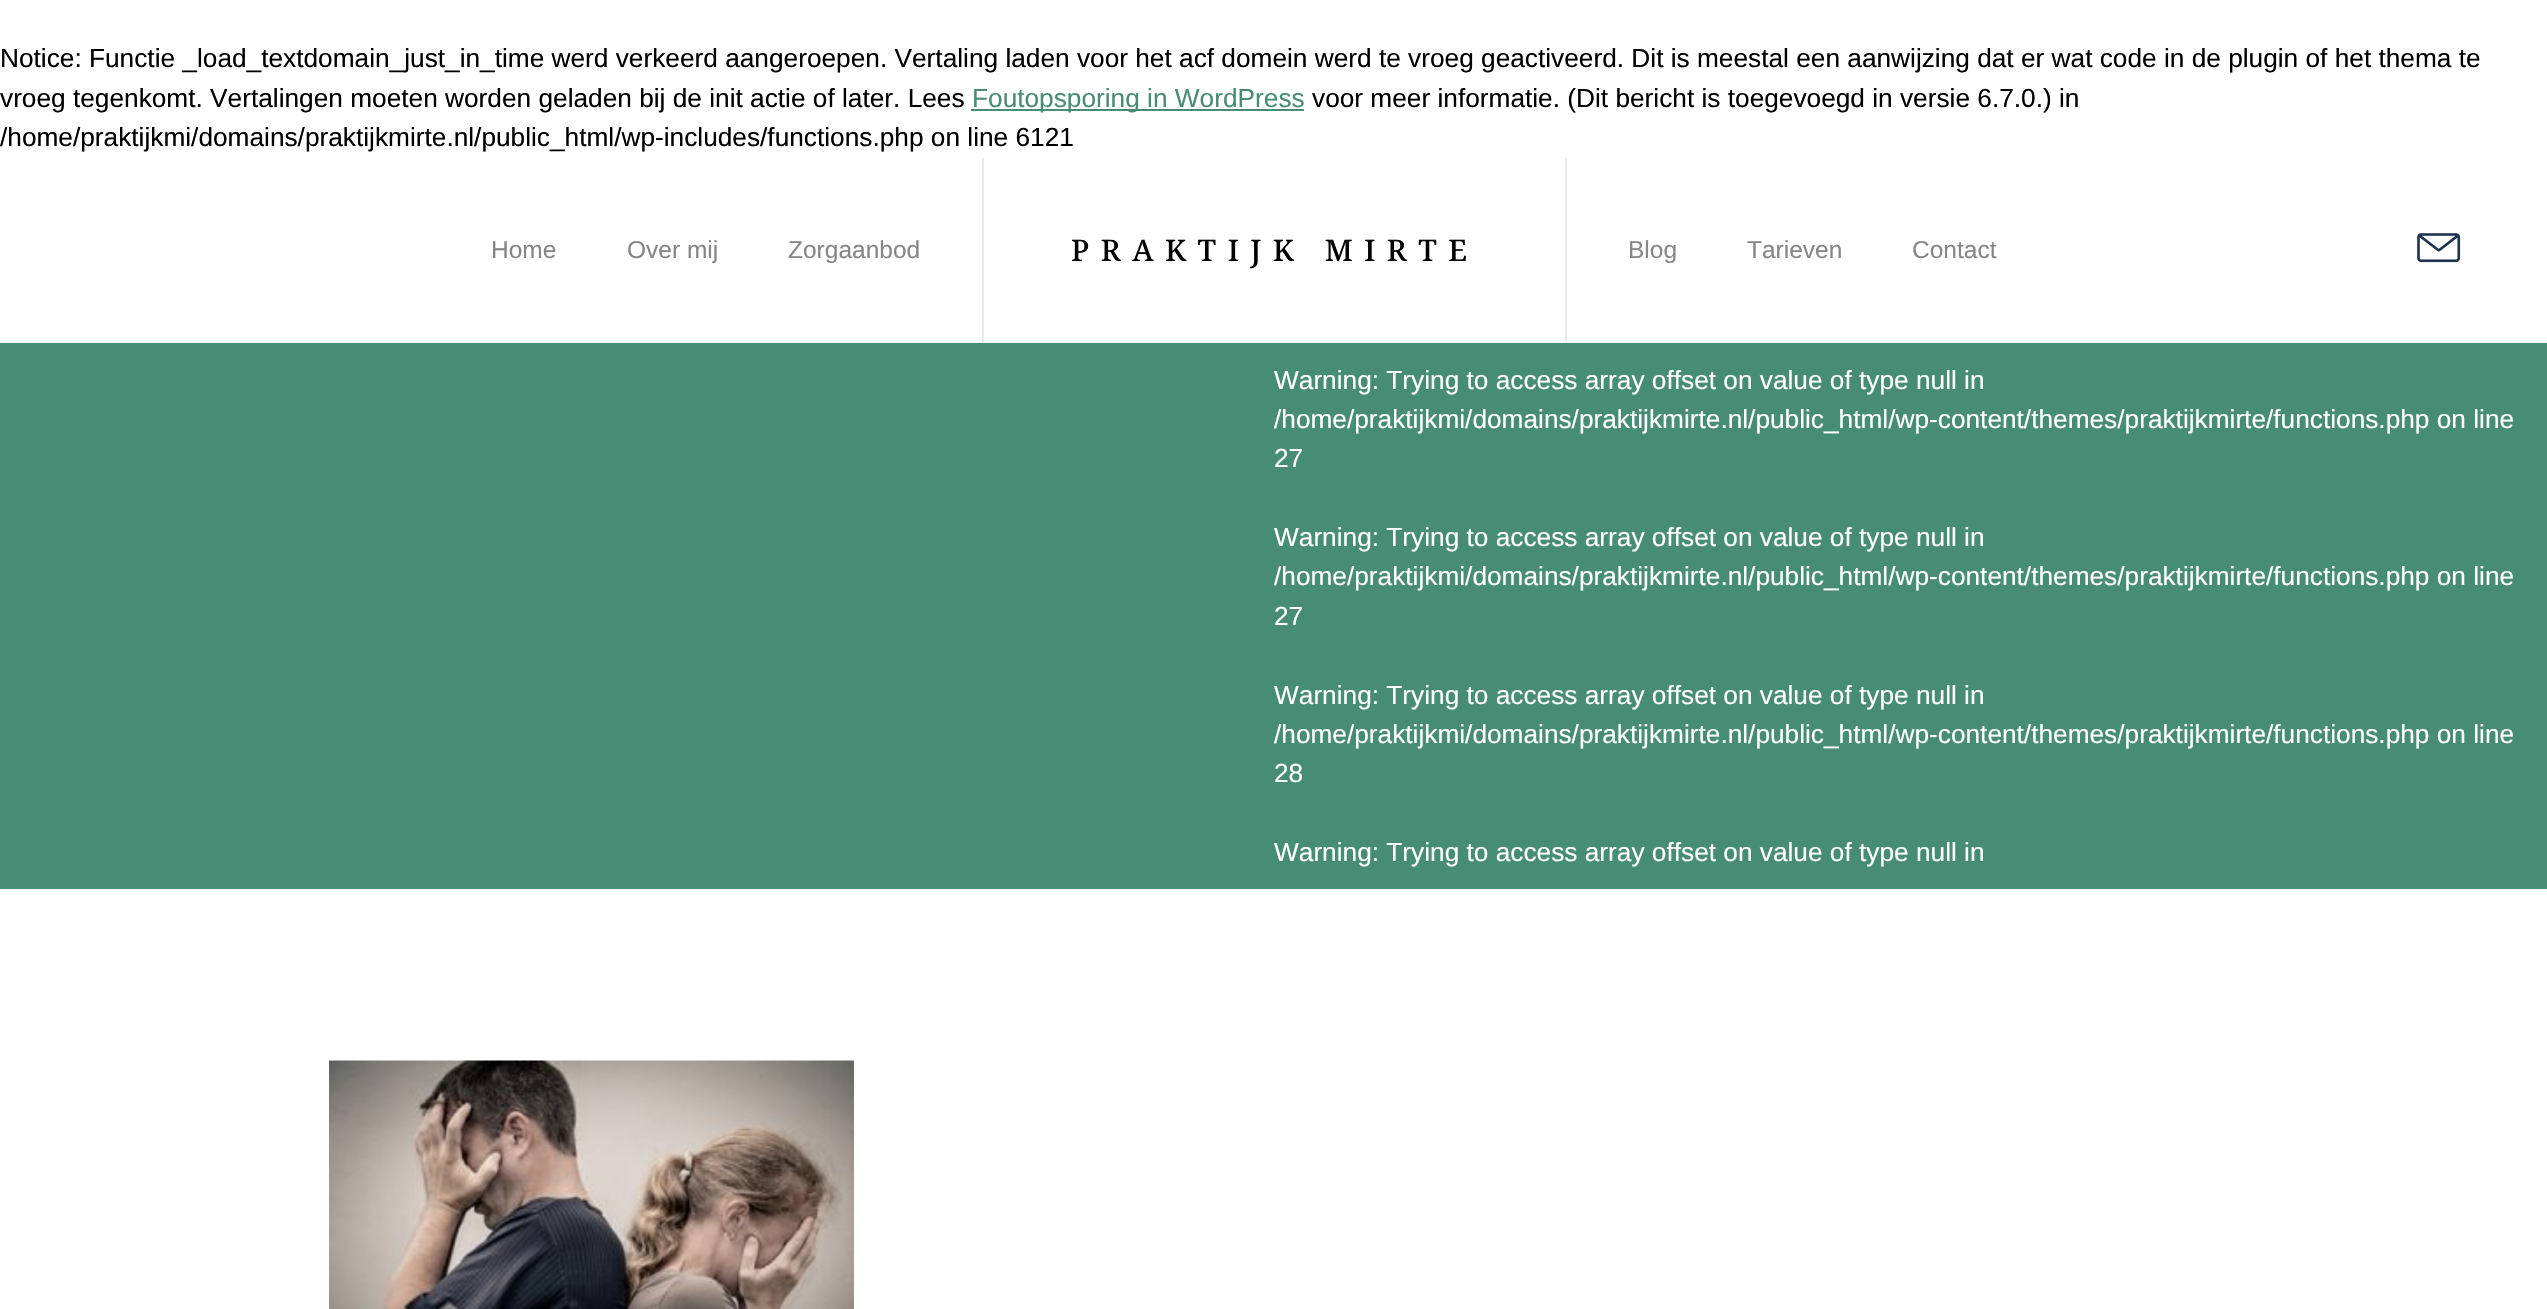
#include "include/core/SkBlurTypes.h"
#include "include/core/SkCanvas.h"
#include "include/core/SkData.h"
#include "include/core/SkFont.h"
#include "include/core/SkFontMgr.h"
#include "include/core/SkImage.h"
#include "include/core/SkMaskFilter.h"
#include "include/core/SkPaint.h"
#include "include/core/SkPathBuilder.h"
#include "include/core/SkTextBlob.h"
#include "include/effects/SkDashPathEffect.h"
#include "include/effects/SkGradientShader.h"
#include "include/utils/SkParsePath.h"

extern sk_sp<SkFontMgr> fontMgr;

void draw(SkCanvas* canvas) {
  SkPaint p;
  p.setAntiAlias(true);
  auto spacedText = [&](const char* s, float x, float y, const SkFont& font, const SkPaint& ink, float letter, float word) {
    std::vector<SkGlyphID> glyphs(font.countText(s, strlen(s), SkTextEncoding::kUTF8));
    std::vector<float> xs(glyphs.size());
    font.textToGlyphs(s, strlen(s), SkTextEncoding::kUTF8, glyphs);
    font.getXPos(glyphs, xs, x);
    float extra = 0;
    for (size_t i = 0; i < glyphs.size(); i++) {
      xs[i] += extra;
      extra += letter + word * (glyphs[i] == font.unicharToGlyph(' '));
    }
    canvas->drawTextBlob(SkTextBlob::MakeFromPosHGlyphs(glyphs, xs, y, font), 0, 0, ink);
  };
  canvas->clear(SK_ColorWHITE);
  p.setColor(SkColorSetRGB(71, 140, 117));
  canvas->drawRect(SkRect::MakeLTRB(971, 109, 1304, 111), p);
  p.setColor(SkColorSetRGB(235, 235, 235));
  canvas->drawRect(SkRect::MakeLTRB(1565, 158, 1567, 343), p);
  canvas->drawRect(SkRect::MakeLTRB(982, 158, 984, 343), p);
  canvas->drawImageRect(SkImages::DeferredFromEncodedData(SkData::MakeFromFileName("images/1.png")), SkRect::MakeLTRB(2417, 233, 2461, 263), SkSamplingOptions());
  p.setColor(SkColorSetRGB(71, 140, 117));
  canvas->drawRect(SkRect::MakeLTRB(0, 343, 2547, 889), p);
  canvas->drawImageRect(SkImages::DeferredFromEncodedData(SkData::MakeFromFileName("images/2.png")), SkRect::MakeLTRB(329, 1060, 854, 1309), SkSamplingOptions());
  SkFont font1(fontMgr->matchFamilyStyle("Liberation Sans", SkFontStyle::Normal()), 26.25f);
  font1.setSubpixel(true);
  p.setColor(SK_ColorBLACK);
  canvas->drawString("Notice: Functie _load_textdomain_just_in_time werd verkeerd aangeroepen. Vertaling laden voor het acf domein werd te vroeg geactiveerd. Dit is meestal een aanwijzing dat er wat code in de plugin of het thema te", 0, 67, font1, p);
  canvas->drawString("vroeg tegenkomt. Vertalingen moeten worden geladen bij de init actie of later. Lees", 0, 107, font1, p);
  p.setColor(SkColorSetRGB(71, 140, 117));
  canvas->drawString("Foutopsporing in WordPress", 972, 107, font1, p);
  p.setColor(SK_ColorBLACK);
  canvas->drawString("voor meer informatie. (Dit bericht is toegevoegd in versie 6.7.0.) in", 1312, 107, font1, p);
  canvas->drawString("/home/praktijkmi/domains/praktijkmirte.nl/public_html/wp-includes/functions.php on line 6121", 0, 146, font1, p);
  SkFont font2(fontMgr->matchFamilyStyle("Liberation Sans", SkFontStyle::Normal()), 24.5f);
  font2.setSubpixel(true);
  p.setColor(SkColorSetRGB(134, 134, 134));
  canvas->drawString("Home", 491, 258, font2, p);
  canvas->drawString("Over mij", 627, 258, font2, p);
  canvas->drawString("Zorgaanbod", 788, 258, font2, p);
  SkFont font3(fontMgr->matchFamilyStyle("Noto Serif", SkFontStyle(500, SkFontStyle::kNormal_Width, SkFontStyle::kUpright_Slant)), 29.75f);
  font3.setSubpixel(true);
  p.setColor(SK_ColorBLACK);
  spacedText("PRAKTIJK MIRTE", 1071, 261, font3, p, 11.5f, 0);
  p.setColor(SkColorSetRGB(134, 134, 134));
  canvas->drawString("Blog", 1628, 258, font2, p);
  canvas->drawString("Tarieven", 1747, 258, font2, p);
  canvas->drawString("Contact", 1912, 258, font2, p);
  p.setColor(SK_ColorWHITE);
  canvas->drawString("Warning: Trying to access array offset on value of type null in", 1274, 389, font1, p);
  canvas->drawString("/home/praktijkmi/domains/praktijkmirte.nl/public_html/wp-content/themes/praktijkmirte/functions.php on line", 1274, 428, font1, p);
  canvas->drawString("27", 1274, 467, font1, p);
  canvas->drawString("Warning: Trying to access array offset on value of type null in", 1274, 546, font1, p);
  canvas->drawString("/home/praktijkmi/domains/praktijkmirte.nl/public_html/wp-content/themes/praktijkmirte/functions.php on line", 1274, 585, font1, p);
  canvas->drawString("27", 1274, 625, font1, p);
  canvas->drawString("Warning: Trying to access array offset on value of type null in", 1274, 704, font1, p);
  canvas->drawString("/home/praktijkmi/domains/praktijkmirte.nl/public_html/wp-content/themes/praktijkmirte/functions.php on line", 1274, 743, font1, p);
  canvas->drawString("28", 1274, 782, font1, p);
  canvas->drawString("Warning: Trying to access array offset on value of type null in", 1274, 861, font1, p);
}
